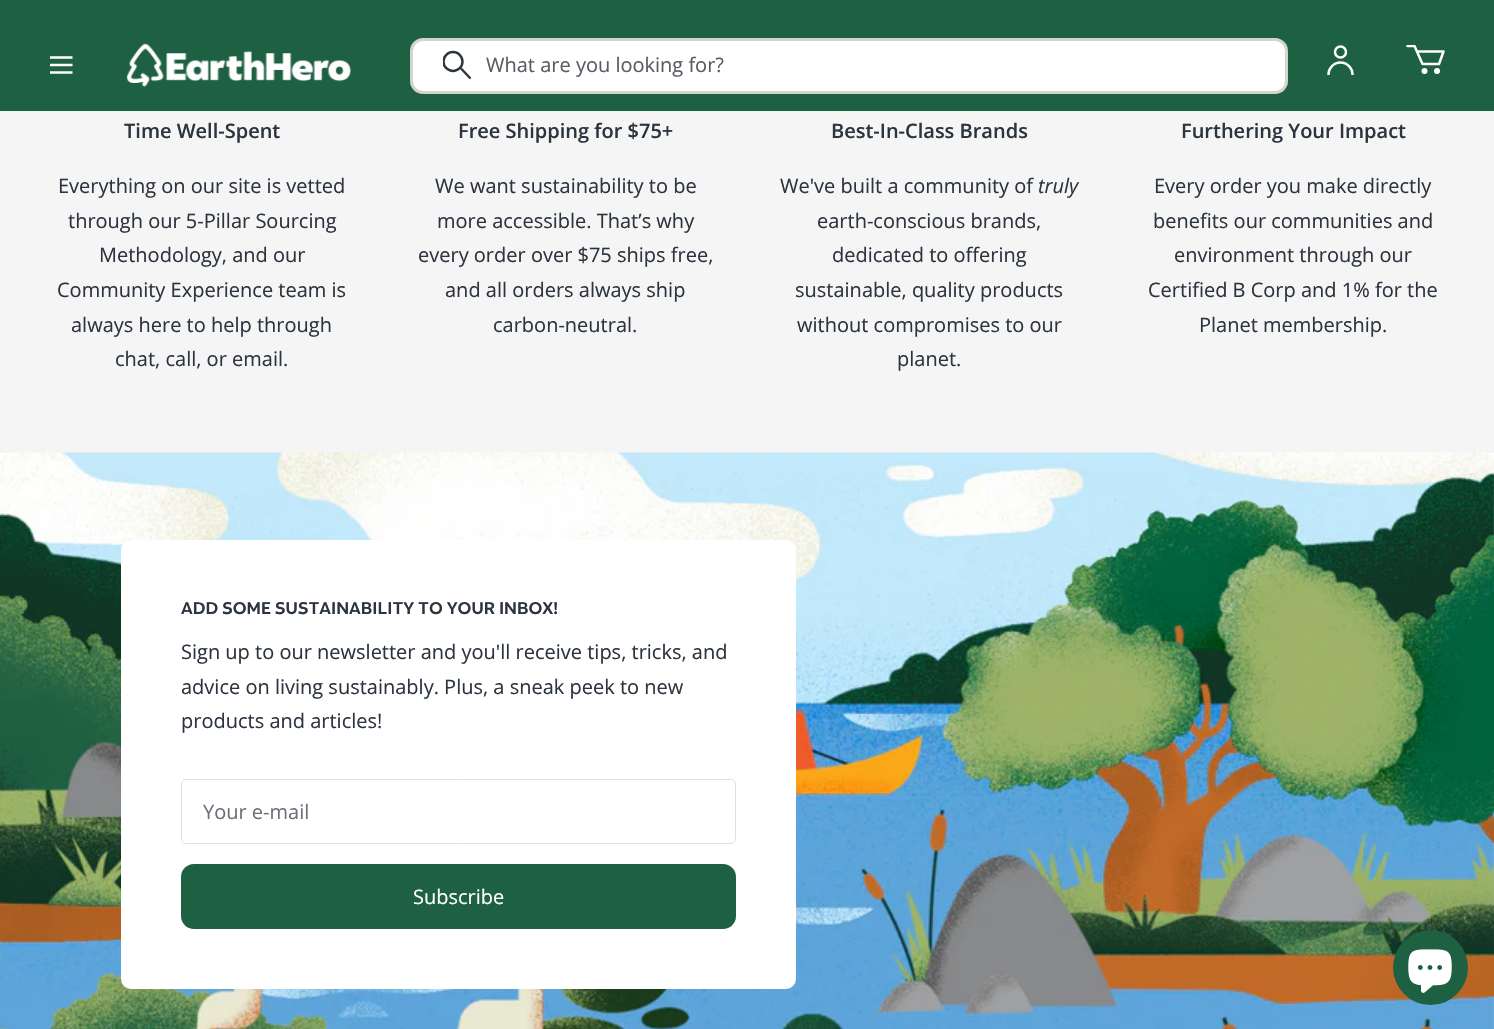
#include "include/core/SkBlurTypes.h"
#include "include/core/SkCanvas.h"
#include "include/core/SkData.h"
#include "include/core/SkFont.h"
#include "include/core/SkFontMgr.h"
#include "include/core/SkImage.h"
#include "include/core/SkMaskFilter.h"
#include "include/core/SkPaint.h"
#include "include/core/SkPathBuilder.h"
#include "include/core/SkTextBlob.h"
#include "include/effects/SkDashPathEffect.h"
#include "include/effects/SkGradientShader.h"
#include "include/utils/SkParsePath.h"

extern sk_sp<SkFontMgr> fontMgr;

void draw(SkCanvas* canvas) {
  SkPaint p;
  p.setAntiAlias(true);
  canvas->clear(SK_ColorWHITE);
  p.setColor(SkColorSetRGB(29, 96, 66));
  canvas->drawRect(SkRect::MakeLTRB(0, 0, 1494, 111), p);
  p.setStyle(SkPaint::kStroke_Style);
  p.setStrokeWidth(2.5f);
  p.setColor(SK_ColorWHITE);
  canvas->drawPath(SkPathBuilder().moveTo(50, 57.5f).lineTo(72.5f, 57.5f).moveTo(50, 72.5f).lineTo(72.5f, 72.5f).close().moveTo(50, 65).lineTo(72.5f, 65).close().detach(), p);
  canvas->drawImageRect(SkImages::DeferredFromEncodedData(SkData::MakeFromFileName("images/1.png")), SkRect::MakeLTRB(126, 43, 351, 87), SkSamplingOptions());
  p.setStyle(SkPaint::kFill_Style);
  canvas->drawRoundRect(SkRect::MakeLTRB(411.5f, 39.5f, 1286.5f, 92.5f), 11.5f, 11.5f, p);
  p.setStyle(SkPaint::kStroke_Style);
  p.setStrokeWidth(3);
  p.setColor(SkColorSetRGB(212, 211, 205));
  canvas->drawRoundRect(SkRect::MakeLTRB(411.5f, 39.5f, 1286.5f, 92.5f), 11.5f, 11.5f, p);
  canvas->save();
  canvas->clipRect(SkRect::MakeLTRB(443, 50, 471, 80));
  p.setStrokeWidth(2.4f);
  p.setColor(SkColorSetRGB(45, 52, 62));
  canvas->drawCircle(453, 61.5f, 9.5f, p);
  canvas->restore();
  canvas->drawPath(SkPathBuilder().moveTo(461, 68.5f).lineTo(470.5f, 78.5f).detach(), p);
  p.setStrokeWidth(2.5f);
  p.setColor(SK_ColorWHITE);
  canvas->drawCircle(1340.5f, 52, 5.5f, p);
  canvas->save();
  canvas->clipRect(SkRect::MakeLTRB(1325, 61, 1356, 75));
  canvas->drawCircle(1340.5f, 74.5f, 12, p);
  canvas->restore();
  canvas->save();
  canvas->clipRect(SkRect::MakeLTRB(1406, 45, 1445, 74));
  p.setStrokeCap(SkPaint::kRound_Cap);
  p.setStrokeJoin(SkPaint::kRound_Join);
  canvas->drawPath(SkPathBuilder().moveTo(1407.5f, 46).lineTo(1414.5f, 46).lineTo(1422.5f, 64).lineTo(1439, 64).lineTo(1443.5f, 51.5f).lineTo(1417, 51.5f).detach(), p);
  canvas->restore();
  p.setStyle(SkPaint::kFill_Style);
  canvas->drawCircle(1424.5f, 71, 3, p);
  canvas->drawCircle(1437, 71, 3, p);
  p.setColor(SkColorSetRGB(245, 245, 245));
  canvas->drawRect(SkRect::MakeLTRB(0, 111, 1494, 453), p);
  canvas->drawImageRect(SkImages::DeferredFromEncodedData(SkData::MakeFromFileName("images/2.png")), SkRect::MakeLTRB(0, 452, 1494, 1029), SkSamplingOptions());
  p.setColor(SK_ColorWHITE);
  canvas->drawRoundRect(SkRect::MakeLTRB(121, 540, 796, 989), 10, 10, p);
  p.setStyle(SkPaint::kStroke_Style);
  p.setStrokeWidth(1);
  p.setStrokeCap(SkPaint::kButt_Cap);
  p.setStrokeJoin(SkPaint::kMiter_Join);
  p.setColor(SkColorSetRGB(223, 225, 226));
  canvas->drawRoundRect(SkRect::MakeLTRB(181.5f, 779.5f, 735.5f, 843.5f), 4.5f, 4.5f, p);
  p.setStyle(SkPaint::kFill_Style);
  p.setColor(SkColorSetRGB(29, 96, 66));
  canvas->drawRoundRect(SkRect::MakeLTRB(181, 864, 736, 929), 13, 13, p);
  canvas->drawCircle(1430.5f, 967.5f, 37.5f, p);
  canvas->drawImageRect(SkImages::DeferredFromEncodedData(SkData::MakeFromFileName("images/3.png")), SkRect::MakeLTRB(1408, 949, 1452, 993), SkSamplingOptions());
  SkFont font1(fontMgr->matchFamilyStyle("Open Sans", SkFontStyle::Normal()), 20);
  font1.setSubpixel(true);
  p.setColor(SkColorSetRGB(86, 93, 101));
  canvas->drawString("What are you looking for?", 486, 72, font1, p);
  SkFont font2(fontMgr->matchFamilyStyle("Open Sans", SkFontStyle(600, SkFontStyle::kNormal_Width, SkFontStyle::kUpright_Slant)), 20);
  font2.setSubpixel(true);
  p.setColor(SkColorSetRGB(44, 52, 63));
  canvas->drawString("Time Well-Spent", 124, 138, font2, p);
  canvas->drawString("Everything on our site is vetted", 58, 193, font1, p);
  canvas->drawString("through our 5-Pillar Sourcing", 68, 228, font1, p);
  canvas->drawString("Methodology, and our", 99, 262, font1, p);
  canvas->drawString("Community Experience team is", 57, 297, font1, p);
  canvas->drawString("always here to help through", 71, 332, font1, p);
  canvas->drawString("chat, call, or email.", 115, 366, font1, p);
  canvas->drawString("Free Shipping for $75+", 458, 138, font2, p);
  canvas->drawString("We want sustainability to be", 435, 193, font1, p);
  canvas->drawString("more accessible. That’s why", 437, 228, font1, p);
  canvas->drawString("every order over $75 ships free,", 418, 262, font1, p);
  canvas->drawString("and all orders always ship", 445, 297, font1, p);
  canvas->drawString("carbon-neutral.", 493, 332, font1, p);
  canvas->drawString("Best-In-Class Brands", 831, 138, font2, p);
  canvas->drawString("We've built a community of", 780, 193, font1, p);
  SkFont font3(fontMgr->matchFamilyStyle("Open Sans", SkFontStyle::Italic()), 20);
  font3.setSubpixel(true);
  canvas->drawString("truly", 1038, 193, font3, p);
  canvas->drawString("earth-conscious brands,", 817, 228, font1, p);
  canvas->drawString("dedicated to offering", 832, 262, font1, p);
  canvas->drawString("sustainable, quality products", 795, 297, font1, p);
  canvas->drawString("without compromises to our", 797, 332, font1, p);
  canvas->drawString("planet.", 897, 366, font1, p);
  canvas->drawString("Furthering Your Impact", 1181, 138, font2, p);
  canvas->drawString("Every order you make directly", 1154, 193, font1, p);
  canvas->drawString("benefits our communities and", 1153, 228, font1, p);
  canvas->drawString("environment through our", 1174, 262, font1, p);
  canvas->drawString("Certified B Corp and 1% for the", 1148, 297, font1, p);
  canvas->drawString("Planet membership.", 1199, 332, font1, p);
  SkFont font4(fontMgr->matchFamilyStyle("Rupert", SkFontStyle::Bold()), 16.25f);
  font4.setSubpixel(true);
  canvas->drawString("ADD SOME SUSTAINABILITY TO YOUR INBOX!", 181, 614, font4, p);
  canvas->drawString("Sign up to our newsletter and you'll receive tips, tricks, and", 181, 659, font1, p);
  canvas->drawString("advice on living sustainably. Plus, a sneak peek to new", 181, 694, font1, p);
  canvas->drawString("products and articles!", 181, 728, font1, p);
  p.setColor(SkColorSetRGB(107, 113, 121));
  canvas->drawString("Your e-mail", 203, 819, font1, p);
  p.setColor(SK_ColorWHITE);
  canvas->drawString("Subscribe", 413, 904, font1, p);
}
